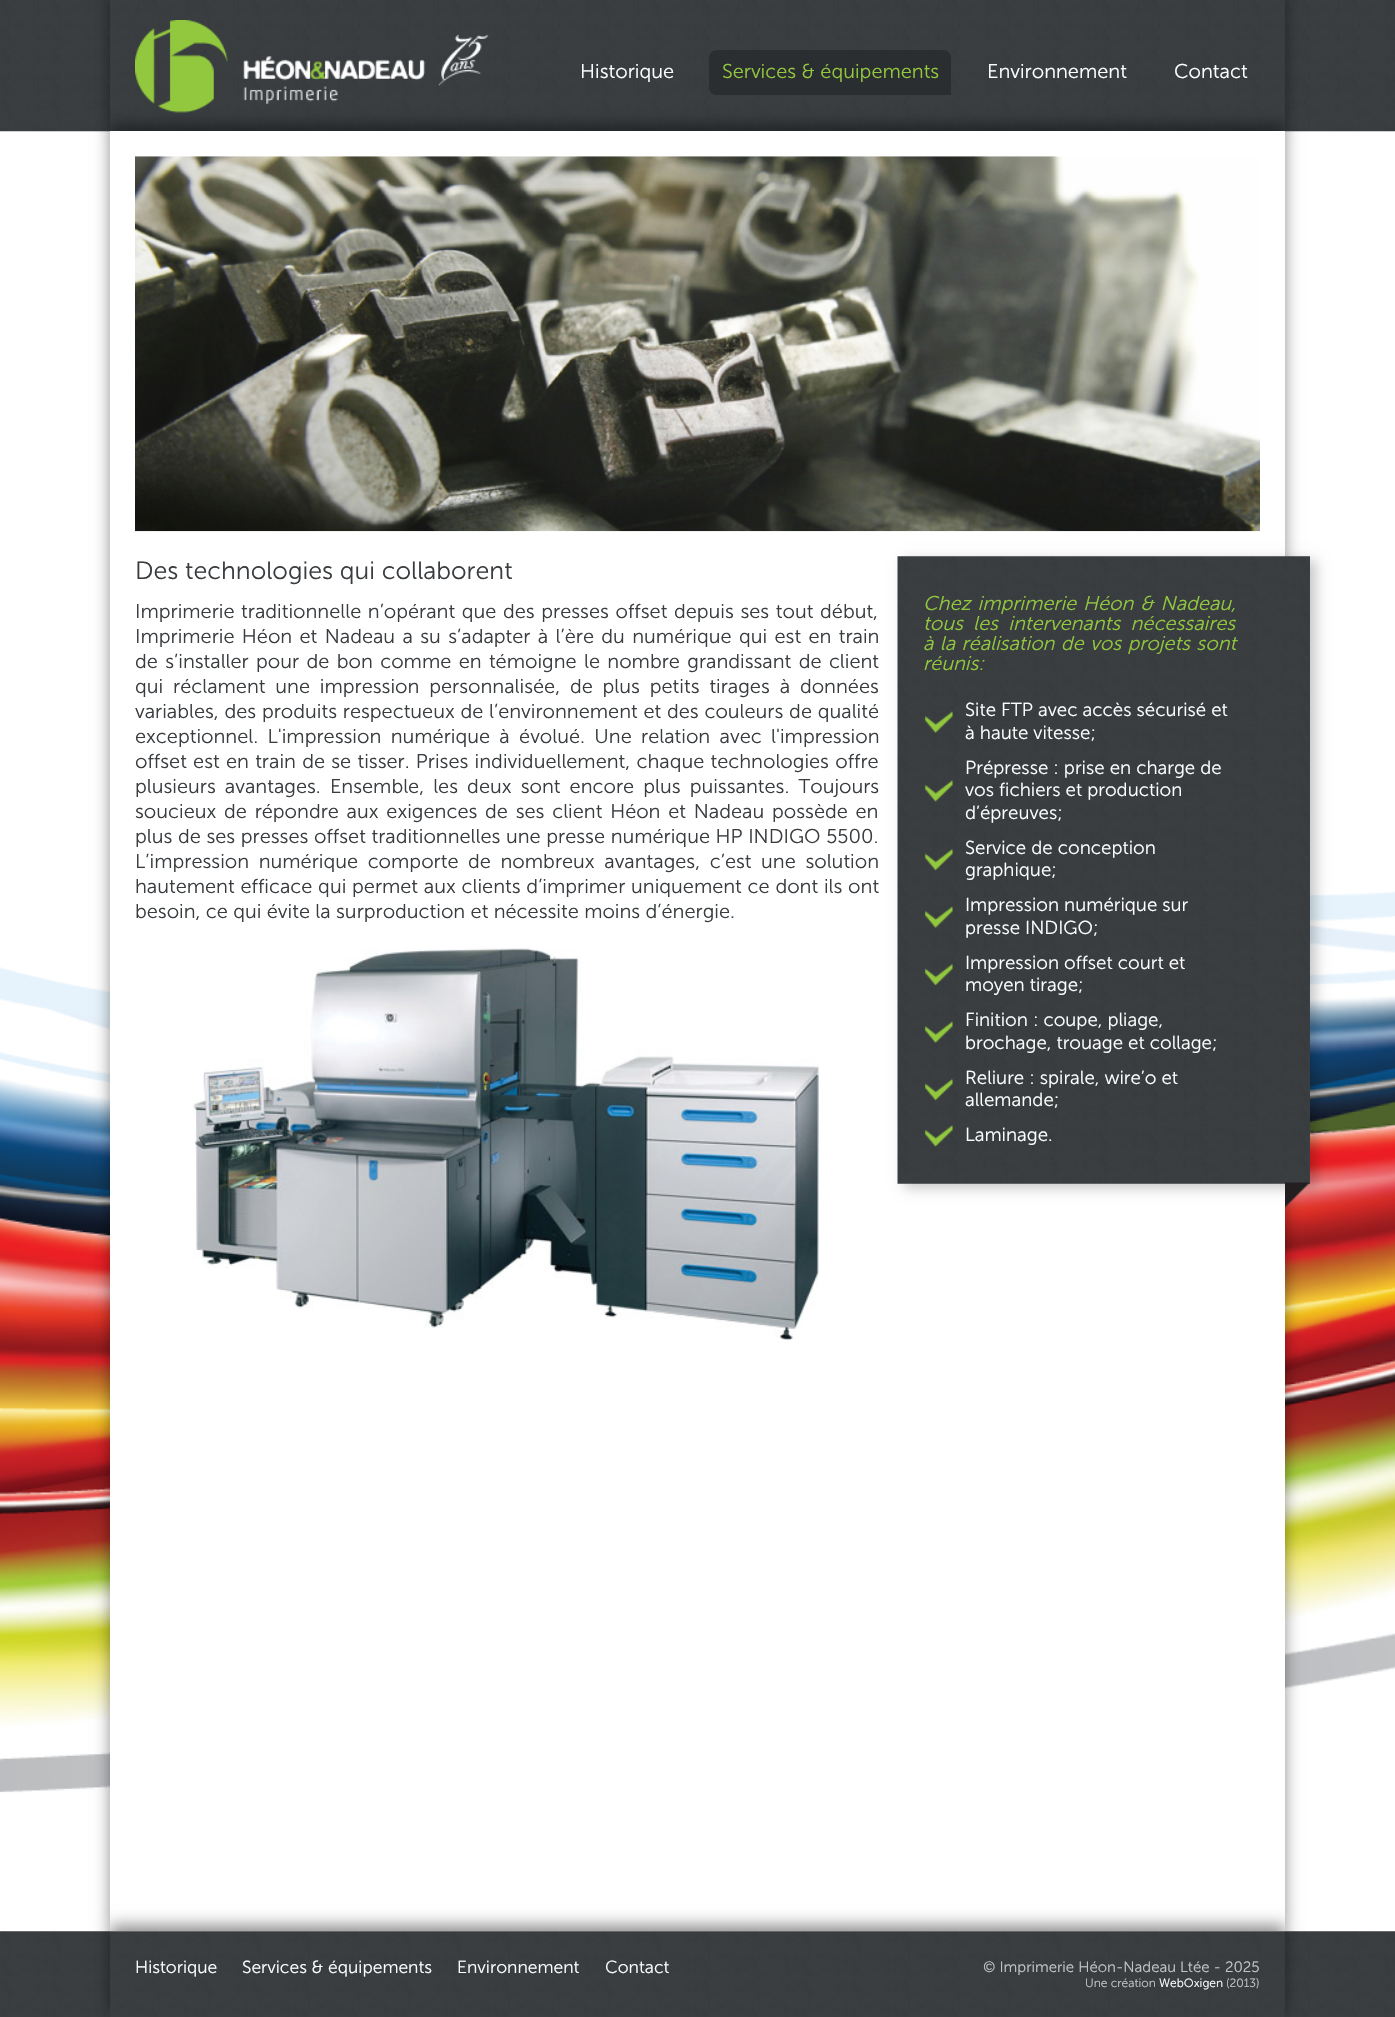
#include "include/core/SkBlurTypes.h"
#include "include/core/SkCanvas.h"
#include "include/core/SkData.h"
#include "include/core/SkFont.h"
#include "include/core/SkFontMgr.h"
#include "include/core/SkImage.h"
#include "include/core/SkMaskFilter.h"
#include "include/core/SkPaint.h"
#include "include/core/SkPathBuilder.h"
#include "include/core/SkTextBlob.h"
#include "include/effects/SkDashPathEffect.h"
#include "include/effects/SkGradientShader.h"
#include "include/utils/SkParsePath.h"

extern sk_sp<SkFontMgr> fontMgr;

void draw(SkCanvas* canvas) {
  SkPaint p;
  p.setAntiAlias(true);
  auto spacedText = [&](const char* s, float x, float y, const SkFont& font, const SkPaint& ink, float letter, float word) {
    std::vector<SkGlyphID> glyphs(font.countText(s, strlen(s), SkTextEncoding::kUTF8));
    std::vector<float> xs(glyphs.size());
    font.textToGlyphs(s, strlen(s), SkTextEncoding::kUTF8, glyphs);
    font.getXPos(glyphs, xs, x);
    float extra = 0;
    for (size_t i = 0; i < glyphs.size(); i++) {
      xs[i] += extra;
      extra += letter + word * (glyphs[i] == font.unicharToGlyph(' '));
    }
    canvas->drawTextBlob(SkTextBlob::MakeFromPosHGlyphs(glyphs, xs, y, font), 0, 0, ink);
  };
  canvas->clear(SK_ColorWHITE);
  canvas->drawImageRect(SkImages::DeferredFromEncodedData(SkData::MakeFromFileName("images/1.png")), SkRect::MakeLTRB(0, 891, 1395, 1793), SkSamplingOptions());
  canvas->drawImageRect(SkImages::DeferredFromEncodedData(SkData::MakeFromFileName("images/2.png")), SkRect::MakeLTRB(0, 0, 1395, 132), SkSamplingOptions());
  canvas->save();
  canvas->clipPath(SkPathBuilder(SkPathFillType::kEvenOdd).moveTo(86, 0).lineTo(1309, 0).lineTo(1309, 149).lineTo(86, 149).close().moveTo(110, 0).lineTo(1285, 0).lineTo(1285, 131).lineTo(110, 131).close().detach(), true);
  p.setColor(SkColorSetARGB(112, 0, 0, 0));
  p.setMaskFilter(SkMaskFilter::MakeBlur(kNormal_SkBlurStyle, 7.5f));
  canvas->drawRect(SkRect::MakeLTRB(110, -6, 1285, 125), p);
  p.setMaskFilter(nullptr);
  canvas->restore();
  p.setMaskFilter(SkMaskFilter::MakeBlur(kNormal_SkBlurStyle, 7.5f));
  canvas->drawRect(SkRect::MakeLTRB(110, 125, 1285, 1925), p);
  p.setMaskFilter(nullptr);
  canvas->drawImageRect(SkImages::DeferredFromEncodedData(SkData::MakeFromFileName("images/3.png")), SkRect::MakeLTRB(135, 20, 489, 113), SkSamplingOptions());
  p.setColor(SkColorSetRGB(43, 46, 48));
  canvas->drawPath(SkPathBuilder().moveTo(717, 50).lineTo(943, 50).cubicTo(947.5f, 50, 951, 53.5f, 951, 58).lineTo(951, 95).lineTo(717, 95).cubicTo(712.5f, 95, 709, 91.5f, 709, 87).lineTo(709, 58).cubicTo(709, 53.5f, 712.5f, 50, 717, 50).close().detach(), p);
  p.setColor(SK_ColorWHITE);
  canvas->drawRect(SkRect::MakeLTRB(110, 131, 1285, 1931), p);
  canvas->drawImageRect(SkImages::DeferredFromEncodedData(SkData::MakeFromFileName("images/4.png")), SkRect::MakeLTRB(135, 156, 1260, 532), SkSamplingOptions());
  canvas->drawImageRect(SkImages::DeferredFromEncodedData(SkData::MakeFromFileName("images/5.png")), SkRect::MakeLTRB(193, 948, 819, 1340), SkSamplingOptions());
  p.setColor(SkColorSetARGB(56, 0, 0, 0));
  p.setMaskFilter(SkMaskFilter::MakeBlur(kNormal_SkBlurStyle, 6));
  canvas->drawRect(SkRect::MakeLTRB(904, 560, 1316, 1188), p);
  p.setMaskFilter(nullptr);
  canvas->drawImageRect(SkImages::DeferredFromEncodedData(SkData::MakeFromFileName("images/6.png")), SkRect::MakeLTRB(897, 556, 1310, 1184), SkSamplingOptions());
  canvas->drawImageRect(SkImages::DeferredFromEncodedData(SkData::MakeFromFileName("images/7.png")), SkRect::MakeLTRB(924, 711, 953, 733), SkSamplingOptions());
  canvas->drawImageRect(SkImages::DeferredFromEncodedData(SkData::MakeFromFileName("images/8.png")), SkRect::MakeLTRB(924, 780, 953, 802), SkSamplingOptions());
  canvas->drawImageRect(SkImages::DeferredFromEncodedData(SkData::MakeFromFileName("images/9.png")), SkRect::MakeLTRB(924, 848, 953, 871), SkSamplingOptions());
  canvas->drawImageRect(SkImages::DeferredFromEncodedData(SkData::MakeFromFileName("images/10.png")), SkRect::MakeLTRB(924, 906, 953, 928), SkSamplingOptions());
  canvas->drawImageRect(SkImages::DeferredFromEncodedData(SkData::MakeFromFileName("images/11.png")), SkRect::MakeLTRB(924, 963, 953, 986), SkSamplingOptions());
  canvas->drawImageRect(SkImages::DeferredFromEncodedData(SkData::MakeFromFileName("images/12.png")), SkRect::MakeLTRB(924, 1021, 953, 1043), SkSamplingOptions());
  canvas->drawImageRect(SkImages::DeferredFromEncodedData(SkData::MakeFromFileName("images/13.png")), SkRect::MakeLTRB(924, 1078, 953, 1101), SkSamplingOptions());
  canvas->drawImageRect(SkImages::DeferredFromEncodedData(SkData::MakeFromFileName("images/14.png")), SkRect::MakeLTRB(924, 1125, 953, 1147), SkSamplingOptions());
  canvas->drawImageRect(SkImages::DeferredFromEncodedData(SkData::MakeFromFileName("images/15.png")), SkRect::MakeLTRB(1285, 1182, 1310, 1208), SkSamplingOptions());
  canvas->drawImageRect(SkImages::DeferredFromEncodedData(SkData::MakeFromFileName("images/16.png")), SkRect::MakeLTRB(0, 1931, 1395, 2017), SkSamplingOptions());
  canvas->save();
  canvas->clipPath(SkPathBuilder(SkPathFillType::kEvenOdd).moveTo(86, 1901).lineTo(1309, 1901).lineTo(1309, 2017).lineTo(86, 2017).close().moveTo(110, 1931).lineTo(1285, 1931).lineTo(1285, 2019).lineTo(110, 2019).close().detach(), true);
  p.setColor(SkColorSetARGB(112, 0, 0, 0));
  p.setMaskFilter(SkMaskFilter::MakeBlur(kNormal_SkBlurStyle, 7.5f));
  canvas->drawRect(SkRect::MakeLTRB(110, 1925, 1285, 2013), p);
  p.setMaskFilter(nullptr);
  canvas->restore();
  SkFont font1(fontMgr->matchFamilyStyle("Museo Sans", SkFontStyle(300, SkFontStyle::kNormal_Width, SkFontStyle::kUpright_Slant)), 20);
  font1.setSubpixel(true);
  p.setColor(SK_ColorWHITE);
  canvas->drawString("Historique", 580, 78, font1, p);
  p.setColor(SkColorSetRGB(146, 200, 62));
  canvas->drawString("Services & équipements", 722, 78, font1, p);
  p.setColor(SK_ColorWHITE);
  canvas->drawString("Environnement", 987, 78, font1, p);
  canvas->drawString("Contact", 1174, 78, font1, p);
  SkFont font2(fontMgr->matchFamilyStyle("Museo Sans", SkFontStyle(300, SkFontStyle::kNormal_Width, SkFontStyle::kUpright_Slant)), 25);
  font2.setSubpixel(true);
  p.setColor(SkColorSetRGB(57, 61, 64));
  canvas->drawString("Des technologies qui collaborent", 135, 579, font2, p);
  spacedText("Imprimerie traditionnelle n’opérant que des presses offset depuis ses tout début,", 135, 618, font1, p, 0, 1.25f);
  spacedText("Imprimerie Héon et Nadeau a su s’adapter à l’ère du numérique qui est en train", 135, 643, font1, p, 0, 2);
  spacedText("de s’installer pour de bon comme en témoigne le nombre grandissant de client", 135, 668, font1, p, 0, 2);
  spacedText("qui réclament une impression personnalisée, de plus petits tirages à données", 135, 693, font1, p, 0, 4.5f);
  spacedText("variables, des produits respectueux de l’environnement et des couleurs de qualité", 135, 718, font1, p, 0, 0.4f);
  spacedText("exceptionnel. L'impression numérique à évolué. Une relation avec l'impression", 135, 743, font1, p, 0, 4);
  spacedText("offset est en train de se tisser. Prises individuellement, chaque technologies offre", 135, 768, font1, p, 0, 0.9f);
  spacedText("plusieurs avantages. Ensemble, les deux sont encore plus puissantes. Toujours", 135, 793, font1, p, 0, 3.75f);
  spacedText("soucieux de répondre aux exigences de ses client Héon et Nadeau possède en", 135, 818, font1, p, 0, 2.4f);
  spacedText("plus de ses presses offset traditionnelles une presse numérique HP INDIGO 5500.", 135, 843, font1, p, 0, 0.25f);
  spacedText("L’impression numérique comporte de nombreux avantages, c’est une solution", 135, 868, font1, p, 0, 4.25f);
  spacedText("hautement efficace qui permet aux clients d’imprimer uniquement ce dont ils ont", 135, 893, font1, p, 0, 0.4f);
  canvas->drawString("besoin, ce qui évite la surproduction et nécessite moins d’énergie.", 135, 918, font1, p);
  SkFont font3(fontMgr->matchFamilyStyle("Museo Sans", SkFontStyle(300, SkFontStyle::kNormal_Width, SkFontStyle::kItalic_Slant)), 20);
  font3.setSubpixel(true);
  p.setColor(SkColorSetRGB(146, 200, 62));
  spacedText("Chez imprimerie Héon & Nadeau,", 923, 610, font3, p, 0, 1.5f);
  spacedText("tous les intervenants nécessaires", 923, 630, font3, p, 0, 5);
  spacedText("à la réalisation de vos projets sont", 923, 650, font3, p, 0, 1);
  canvas->drawString("réunis:", 923, 670, font3, p);
  SkFont font4(fontMgr->matchFamilyStyle("Museo Sans", SkFontStyle(300, SkFontStyle::kNormal_Width, SkFontStyle::kUpright_Slant)), 18.75f);
  font4.setSubpixel(true);
  p.setColor(SK_ColorWHITE);
  canvas->drawString("Site FTP avec accès sécurisé et", 965, 716, font4, p);
  canvas->drawString("à haute vitesse;", 965, 739, font4, p);
  canvas->drawString("Prépresse : prise en charge de", 965, 774, font4, p);
  canvas->drawString("vos fichiers et production", 965, 796, font4, p);
  canvas->drawString("d’épreuves;", 965, 819, font4, p);
  canvas->drawString("Service de conception", 965, 854, font4, p);
  canvas->drawString("graphique;", 965, 876, font4, p);
  canvas->drawString("Impression numérique sur", 965, 911, font4, p);
  canvas->drawString("presse INDIGO;", 965, 934, font4, p);
  canvas->drawString("Impression offset court et", 965, 969, font4, p);
  canvas->drawString("moyen tirage;", 965, 991, font4, p);
  canvas->drawString("Finition : coupe, pliage,", 965, 1026, font4, p);
  canvas->drawString("brochage, trouage et collage;", 965, 1049, font4, p);
  canvas->drawString("Reliure : spirale, wire’o et", 965, 1084, font4, p);
  canvas->drawString("allemande;", 965, 1106, font4, p);
  canvas->drawString("Laminage.", 965, 1141, font4, p);
  SkFont font5(fontMgr->matchFamilyStyle("Museo Sans", SkFontStyle(300, SkFontStyle::kNormal_Width, SkFontStyle::kUpright_Slant)), 17.5f);
  font5.setSubpixel(true);
  canvas->drawString("Historique", 135, 1973, font5, p);
  canvas->drawString("Services & équipements", 242, 1973, font5, p);
  canvas->drawString("Environnement", 457, 1973, font5, p);
  canvas->drawString("Contact", 605, 1973, font5, p);
  SkFont font6(fontMgr->matchFamilyStyle("Museo Sans", SkFontStyle(300, SkFontStyle::kNormal_Width, SkFontStyle::kUpright_Slant)), 15);
  font6.setSubpixel(true);
  p.setColor(SkColorSetRGB(197, 197, 197));
  canvas->drawString("© Imprimerie Héon-Nadeau Ltée - 2025", 983, 1972, font6, p);
  SkFont font7(fontMgr->matchFamilyStyle("Museo Sans", SkFontStyle(300, SkFontStyle::kNormal_Width, SkFontStyle::kUpright_Slant)), 12);
  font7.setSubpixel(true);
  canvas->drawString("Une création", 1085, 1987, font7, p);
  p.setColor(SK_ColorWHITE);
  canvas->drawString("WebOxigen", 1159, 1987, font7, p);
  p.setColor(SkColorSetRGB(197, 197, 197));
  canvas->drawString("(2013)", 1226, 1987, font7, p);
}
